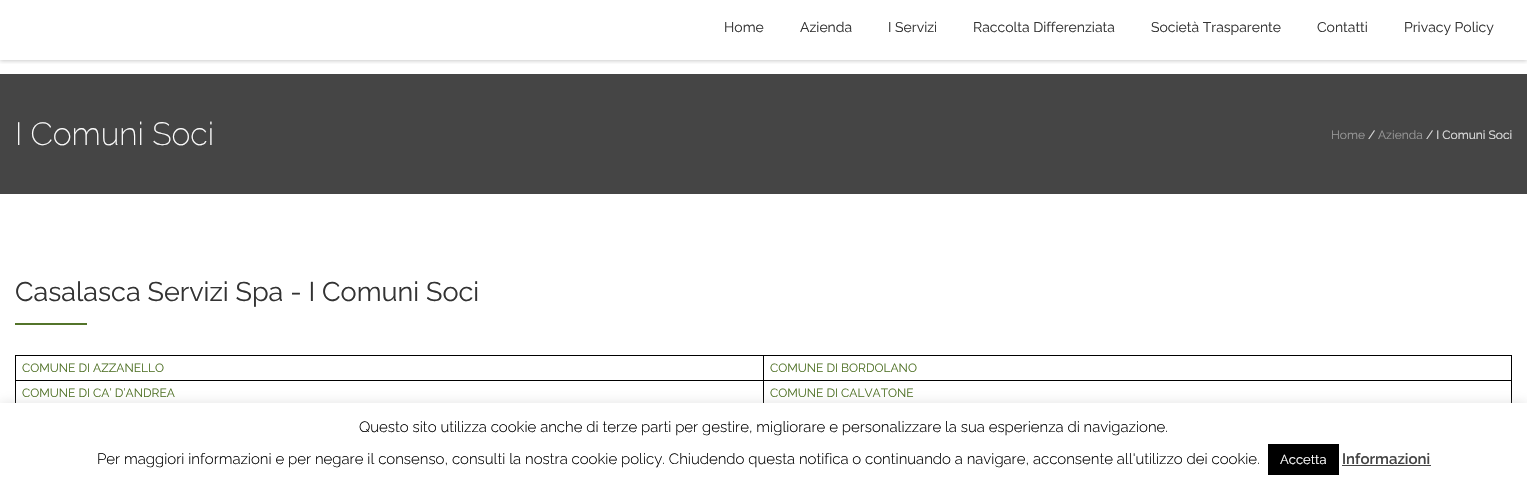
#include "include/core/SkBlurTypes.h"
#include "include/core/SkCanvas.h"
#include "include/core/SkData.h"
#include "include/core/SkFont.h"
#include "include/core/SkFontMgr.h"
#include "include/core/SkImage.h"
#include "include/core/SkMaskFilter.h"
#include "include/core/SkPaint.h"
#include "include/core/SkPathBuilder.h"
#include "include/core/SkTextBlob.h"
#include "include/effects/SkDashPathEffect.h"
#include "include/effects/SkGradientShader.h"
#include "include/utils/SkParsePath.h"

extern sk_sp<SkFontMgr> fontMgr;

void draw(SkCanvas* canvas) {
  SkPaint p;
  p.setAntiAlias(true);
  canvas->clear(SK_ColorWHITE);
  canvas->save();
  canvas->clipRect(SkRect::MakeLTRB(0, 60, 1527, 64));
  p.setColor(SkColorSetARGB(51, 0, 0, 0));
  p.setMaskFilter(SkMaskFilter::MakeBlur(kNormal_SkBlurStyle, 2));
  canvas->drawRect(SkRect::MakeLTRB(0, 1, 1527, 61), p);
  p.setMaskFilter(nullptr);
  canvas->restore();
  p.setColor(SkColorSetRGB(69, 69, 69));
  canvas->drawRect(SkRect::MakeLTRB(0, 74, 1527, 194), p);
  p.setColor(SkColorSetRGB(83, 116, 42));
  canvas->drawRect(SkRect::MakeLTRB(15, 323, 87, 325), p);
  p.setColor(SK_ColorBLACK);
  canvas->drawRect(SkRect::MakeLTRB(763, 355, 1512, 356), p);
  canvas->drawRect(SkRect::MakeLTRB(763, 380, 1512, 381), p);
  canvas->drawRect(SkRect::MakeLTRB(763, 380, 764, 406), p);
  canvas->drawRect(SkRect::MakeLTRB(15, 380, 764, 381), p);
  canvas->drawRect(SkRect::MakeLTRB(763, 355, 764, 381), p);
  canvas->drawRect(SkRect::MakeLTRB(15, 355, 764, 356), p);
  canvas->drawRect(SkRect::MakeLTRB(15, 380, 16, 406), p);
  canvas->drawRect(SkRect::MakeLTRB(15, 355, 16, 381), p);
  canvas->drawRect(SkRect::MakeLTRB(1511, 380, 1512, 406), p);
  canvas->drawRect(SkRect::MakeLTRB(1511, 355, 1512, 381), p);
  p.setColor(SkColorSetARGB(77, 172, 171, 171));
  p.setMaskFilter(SkMaskFilter::MakeBlur(kNormal_SkBlurStyle, 5));
  canvas->drawRect(SkRect::MakeLTRB(0, 402, 1527, 486), p);
  p.setMaskFilter(nullptr);
  p.setColor(SK_ColorWHITE);
  canvas->drawRect(SkRect::MakeLTRB(0, 403, 1527, 487), p);
  p.setColor(SK_ColorBLACK);
  canvas->drawRect(SkRect::MakeLTRB(1268, 444, 1339, 475), p);
  p.setColor(SkColorSetRGB(68, 68, 68));
  canvas->drawRect(SkRect::MakeLTRB(1342, 465, 1431, 466), p);
  SkFont font1(fontMgr->matchFamilyStyle("Raleway", SkFontStyle::Normal()), 14);
  font1.setSubpixel(true);
  p.setColor(SkColorSetRGB(51, 51, 51));
  canvas->drawString("Home", 724, 32, font1, p);
  canvas->drawString("Azienda", 800, 32, font1, p);
  canvas->drawString("I Servizi", 888, 32, font1, p);
  canvas->drawString("Raccolta Differenziata", 973, 32, font1, p);
  canvas->drawString("Società Trasparente", 1151, 32, font1, p);
  canvas->drawString("Contatti", 1317, 32, font1, p);
  canvas->drawString("Privacy Policy", 1404, 32, font1, p);
  SkFont font2(fontMgr->matchFamilyStyle("Raleway", SkFontStyle(200, SkFontStyle::kNormal_Width, SkFontStyle::kUpright_Slant)), 32);
  font2.setSubpixel(true);
  p.setColor(SK_ColorWHITE);
  canvas->drawString("I Comuni Soci", 15, 145, font2, p);
  SkFont font3(fontMgr->matchFamilyStyle("Raleway", SkFontStyle::Normal()), 12);
  font3.setSubpixel(true);
  p.setColor(SkColorSetRGB(153, 153, 153));
  canvas->drawString("Home", 1331, 139, font3, p);
  p.setColor(SkColorSetRGB(227, 227, 227));
  canvas->drawString("/", 1368, 139, font3, p);
  p.setColor(SkColorSetRGB(153, 153, 153));
  canvas->drawString("Azienda", 1378, 139, font3, p);
  p.setColor(SkColorSetRGB(227, 227, 227));
  canvas->drawString("/ I Comuni Soci", 1426, 139, font3, p);
  SkFont font4(fontMgr->matchFamilyStyle("Raleway", SkFontStyle::Normal()), 27);
  font4.setSubpixel(true);
  p.setColor(SkColorSetRGB(51, 51, 51));
  canvas->drawString("Casalasca Servizi Spa - I Comuni Soci", 15, 301, font4, p);
  p.setColor(SkColorSetRGB(83, 116, 42));
  canvas->drawString("COMUNE DI AZZANELLO", 22, 372, font3, p);
  canvas->drawString("COMUNE DI BORDOLANO", 770, 372, font3, p);
  canvas->drawString("COMUNE DI CA’ D’ANDREA", 22, 397, font3, p);
  canvas->drawString("COMUNE DI CALVATONE", 770, 397, font3, p);
  SkFont font5(fontMgr->matchFamilyStyle("Raleway", SkFontStyle(300, SkFontStyle::kNormal_Width, SkFontStyle::kUpright_Slant)), 15);
  font5.setSubpixel(true);
  p.setColor(SK_ColorBLACK);
  canvas->drawString("Questo sito utilizza cookie anche di terze parti per gestire, migliorare e personalizzare la sua esperienza di navigazione.", 359, 432, font5, p);
  canvas->drawString("Per maggiori informazioni e per negare il consenso, consulti la nostra cookie policy. Chiudendo questa notifica o continuando a navigare, acconsente all'utilizzo dei cookie.", 97, 464, font5, p);
  SkFont font6(fontMgr->matchFamilyStyle("Raleway", SkFontStyle::Normal()), 13);
  font6.setSubpixel(true);
  p.setColor(SK_ColorWHITE);
  canvas->drawString("Accetta", 1280, 464, font6, p);
  SkFont font7(fontMgr->matchFamilyStyle("Raleway", SkFontStyle(600, SkFontStyle::kNormal_Width, SkFontStyle::kUpright_Slant)), 15);
  font7.setSubpixel(true);
  p.setColor(SkColorSetRGB(68, 68, 68));
  canvas->drawString("Informazioni", 1342, 464, font7, p);
}
